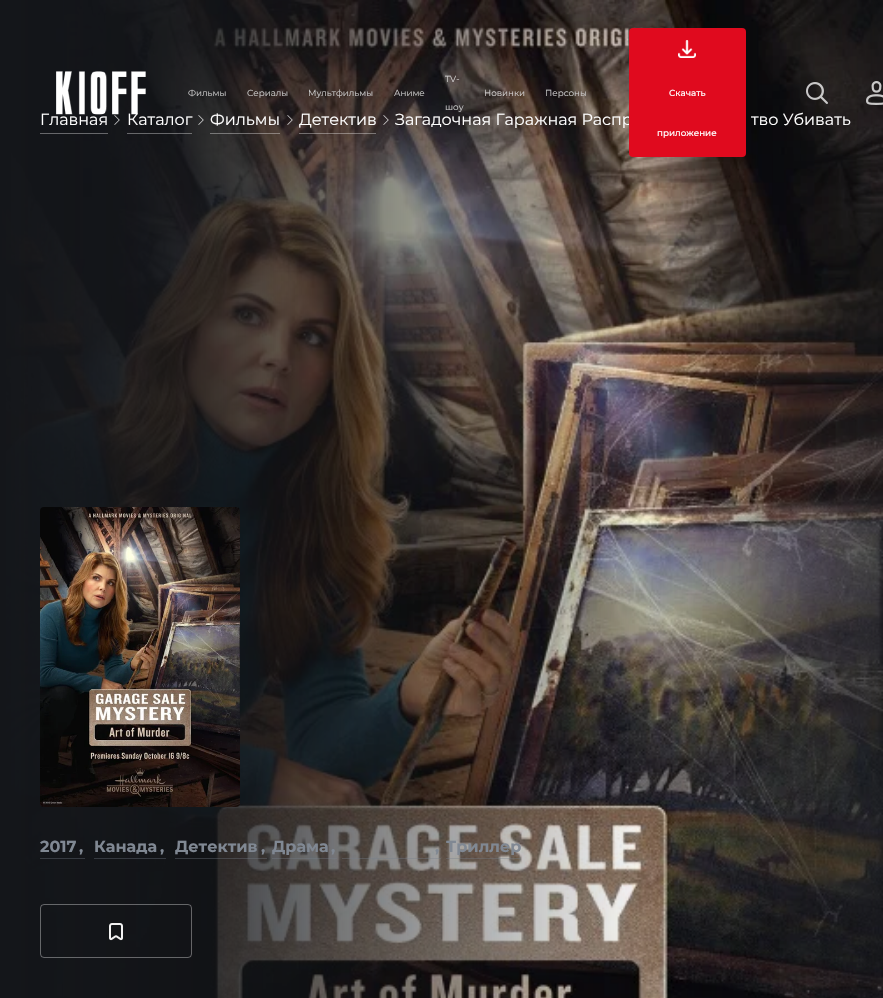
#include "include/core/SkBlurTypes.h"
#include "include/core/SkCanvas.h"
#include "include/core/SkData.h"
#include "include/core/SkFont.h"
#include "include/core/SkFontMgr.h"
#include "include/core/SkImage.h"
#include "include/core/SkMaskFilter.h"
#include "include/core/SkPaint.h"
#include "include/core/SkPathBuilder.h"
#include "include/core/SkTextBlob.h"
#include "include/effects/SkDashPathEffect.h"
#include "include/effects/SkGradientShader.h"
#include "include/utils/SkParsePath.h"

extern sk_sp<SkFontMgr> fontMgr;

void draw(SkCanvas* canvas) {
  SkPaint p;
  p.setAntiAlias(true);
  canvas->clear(SK_ColorWHITE);
  canvas->drawImageRect(SkImages::DeferredFromEncodedData(SkData::MakeFromFileName("images/9.png")), SkRect::MakeLTRB(0, 0, 883, 998), SkSamplingOptions());
  canvas->drawImageRect(SkImages::DeferredFromEncodedData(SkData::MakeFromFileName("images/3.png")), SkRect::MakeLTRB(806, 82, 828, 104), SkSamplingOptions());
  canvas->drawImageRect(SkImages::DeferredFromEncodedData(SkData::MakeFromFileName("images/4.png")), SkRect::MakeLTRB(866, 81, 883, 105), SkSamplingOptions());
  p.setColor(SkColorSetRGB(102, 103, 106));
  canvas->drawRect(SkRect::MakeLTRB(40, 133, 108, 134), p);
  canvas->drawImageRect(SkImages::DeferredFromEncodedData(SkData::MakeFromFileName("images/5.png")), SkRect::MakeLTRB(114, 115, 120, 125), SkSamplingOptions());
  p.setColor(SkColorSetARGB(89, 255, 255, 255));
  canvas->drawRect(SkRect::MakeLTRB(127, 133, 192, 134), p);
  canvas->drawImageRect(SkImages::DeferredFromEncodedData(SkData::MakeFromFileName("images/6.png")), SkRect::MakeLTRB(198, 115, 204, 125), SkSamplingOptions());
  canvas->drawRect(SkRect::MakeLTRB(210, 133, 280, 134), p);
  canvas->drawImageRect(SkImages::DeferredFromEncodedData(SkData::MakeFromFileName("images/7.png")), SkRect::MakeLTRB(287, 115, 293, 125), SkSamplingOptions());
  canvas->drawRect(SkRect::MakeLTRB(299, 133, 376, 134), p);
  canvas->drawImageRect(SkImages::DeferredFromEncodedData(SkData::MakeFromFileName("images/8.png")), SkRect::MakeLTRB(383, 115, 389, 125), SkSamplingOptions());
  canvas->drawImageRect(SkImages::DeferredFromEncodedData(SkData::MakeFromFileName("images/10.png")), SkRect::MakeLTRB(40, 507, 240, 807), SkSamplingOptions());
  p.setColor(SkColorSetRGB(54, 58, 65));
  canvas->drawRect(SkRect::MakeLTRB(40, 858, 85, 859), p);
  p.setColor(SkColorSetRGB(53, 57, 64));
  canvas->drawRect(SkRect::MakeLTRB(94, 858, 166, 859), p);
  p.setColor(SkColorSetARGB(89, 117, 125, 138));
  canvas->drawRect(SkRect::MakeLTRB(175, 858, 267, 859), p);
  canvas->drawRect(SkRect::MakeLTRB(272, 858, 337, 859), p);
  canvas->drawRect(SkRect::MakeLTRB(342, 858, 441, 859), p);
  canvas->drawRect(SkRect::MakeLTRB(446, 858, 521, 859), p);
  p.setStyle(SkPaint::kStroke_Style);
  p.setStrokeWidth(1);
  p.setColor(SkColorSetARGB(89, 255, 255, 255));
  canvas->drawRoundRect(SkRect::MakeLTRB(40.5f, 904.5f, 191.5f, 957.5f), 3.5f, 3.5f, p);
  canvas->drawImageRect(SkImages::DeferredFromEncodedData(SkData::MakeFromFileName("images/11.png")), SkRect::MakeLTRB(109, 923, 123, 941), SkSamplingOptions());
  SkFont font1(fontMgr->matchFamilyStyle("Montserrat", SkFontStyle::Normal()), 8.75f);
  font1.setSubpixel(true);
  p.setStyle(SkPaint::kFill_Style);
  p.setColor(SkColorSetRGB(201, 201, 201));
  canvas->drawString("Фильмы", 188, 96, font1, p);
  canvas->drawString("Сериалы", 247, 96, font1, p);
  canvas->drawString("Мультфильмы", 308, 96, font1, p);
  canvas->drawString("Аниме", 394, 96, font1, p);
  p.setColor(SkColorSetRGB(210, 208, 208));
  canvas->drawString("TV-", 445, 82, font1, p);
  p.setColor(SkColorSetRGB(201, 201, 201));
  canvas->drawString("шоу", 445, 110, font1, p);
  p.setColor(SkColorSetRGB(210, 208, 208));
  canvas->drawString("Новинки", 484, 96, font1, p);
  p.setColor(SkColorSetRGB(201, 201, 201));
  canvas->drawString("Персоны", 545, 96, font1, p);
  SkFont font2(fontMgr->matchFamilyStyle("Montserrat", SkFontStyle::Normal()), 16);
  font2.setSubpixel(true);
  p.setColor(SK_ColorWHITE);
  canvas->drawString("Главная", 40, 125, font2, p);
  canvas->drawString("Каталог", 127, 125, font2, p);
  canvas->drawImageRect(SkImages::DeferredFromEncodedData(SkData::MakeFromFileName("images/1.png")), SkRect::MakeLTRB(56, 71, 146, 115), SkSamplingOptions());
  canvas->drawString("Фильмы", 210, 125, font2, p);
  canvas->drawString("Детектив", 299, 125, font2, p);
  canvas->drawString("Загадочная Гаражная Распр", 395, 125, font2, p);
  p.setColor(SkColorSetRGB(224, 10, 30));
  canvas->drawRoundRect(SkRect::MakeLTRB(629, 28, 746, 157), 4, 4, p);
  canvas->drawImageRect(SkImages::DeferredFromEncodedData(SkData::MakeFromFileName("images/2.png")), SkRect::MakeLTRB(678, 40, 696, 58), SkSamplingOptions());
  SkFont font3(fontMgr->matchFamilyStyle("Montserrat", SkFontStyle(500, SkFontStyle::kNormal_Width, SkFontStyle::kUpright_Slant)), 8.75f);
  font3.setSubpixel(true);
  p.setColor(SK_ColorWHITE);
  canvas->drawString("приложение", 657, 136, font3, p);
  canvas->drawString("Скачать", 669, 96, font3, p);
  canvas->drawString("тво Убивать", 751, 125, font2, p);
  SkFont font4(fontMgr->matchFamilyStyle("Montserrat", SkFontStyle::Bold()), 16);
  font4.setSubpixel(true);
  p.setColor(SkColorSetRGB(128, 136, 147));
  canvas->drawString("2017", 40, 852, font4, p);
  canvas->drawString(",", 79, 852, font4, p);
  canvas->drawString("Канада", 94, 852, font4, p);
  canvas->drawString(",", 160, 852, font4, p);
  canvas->drawString("Детектив", 175, 852, font4, p);
  canvas->drawString(",", 261, 852, font4, p);
  canvas->drawString("Драма", 272, 852, font4, p);
  canvas->drawString(",", 331, 852, font4, p);
  canvas->drawString(",", 435, 852, font4, p);
  canvas->drawString("Триллер", 446, 852, font4, p);
}
